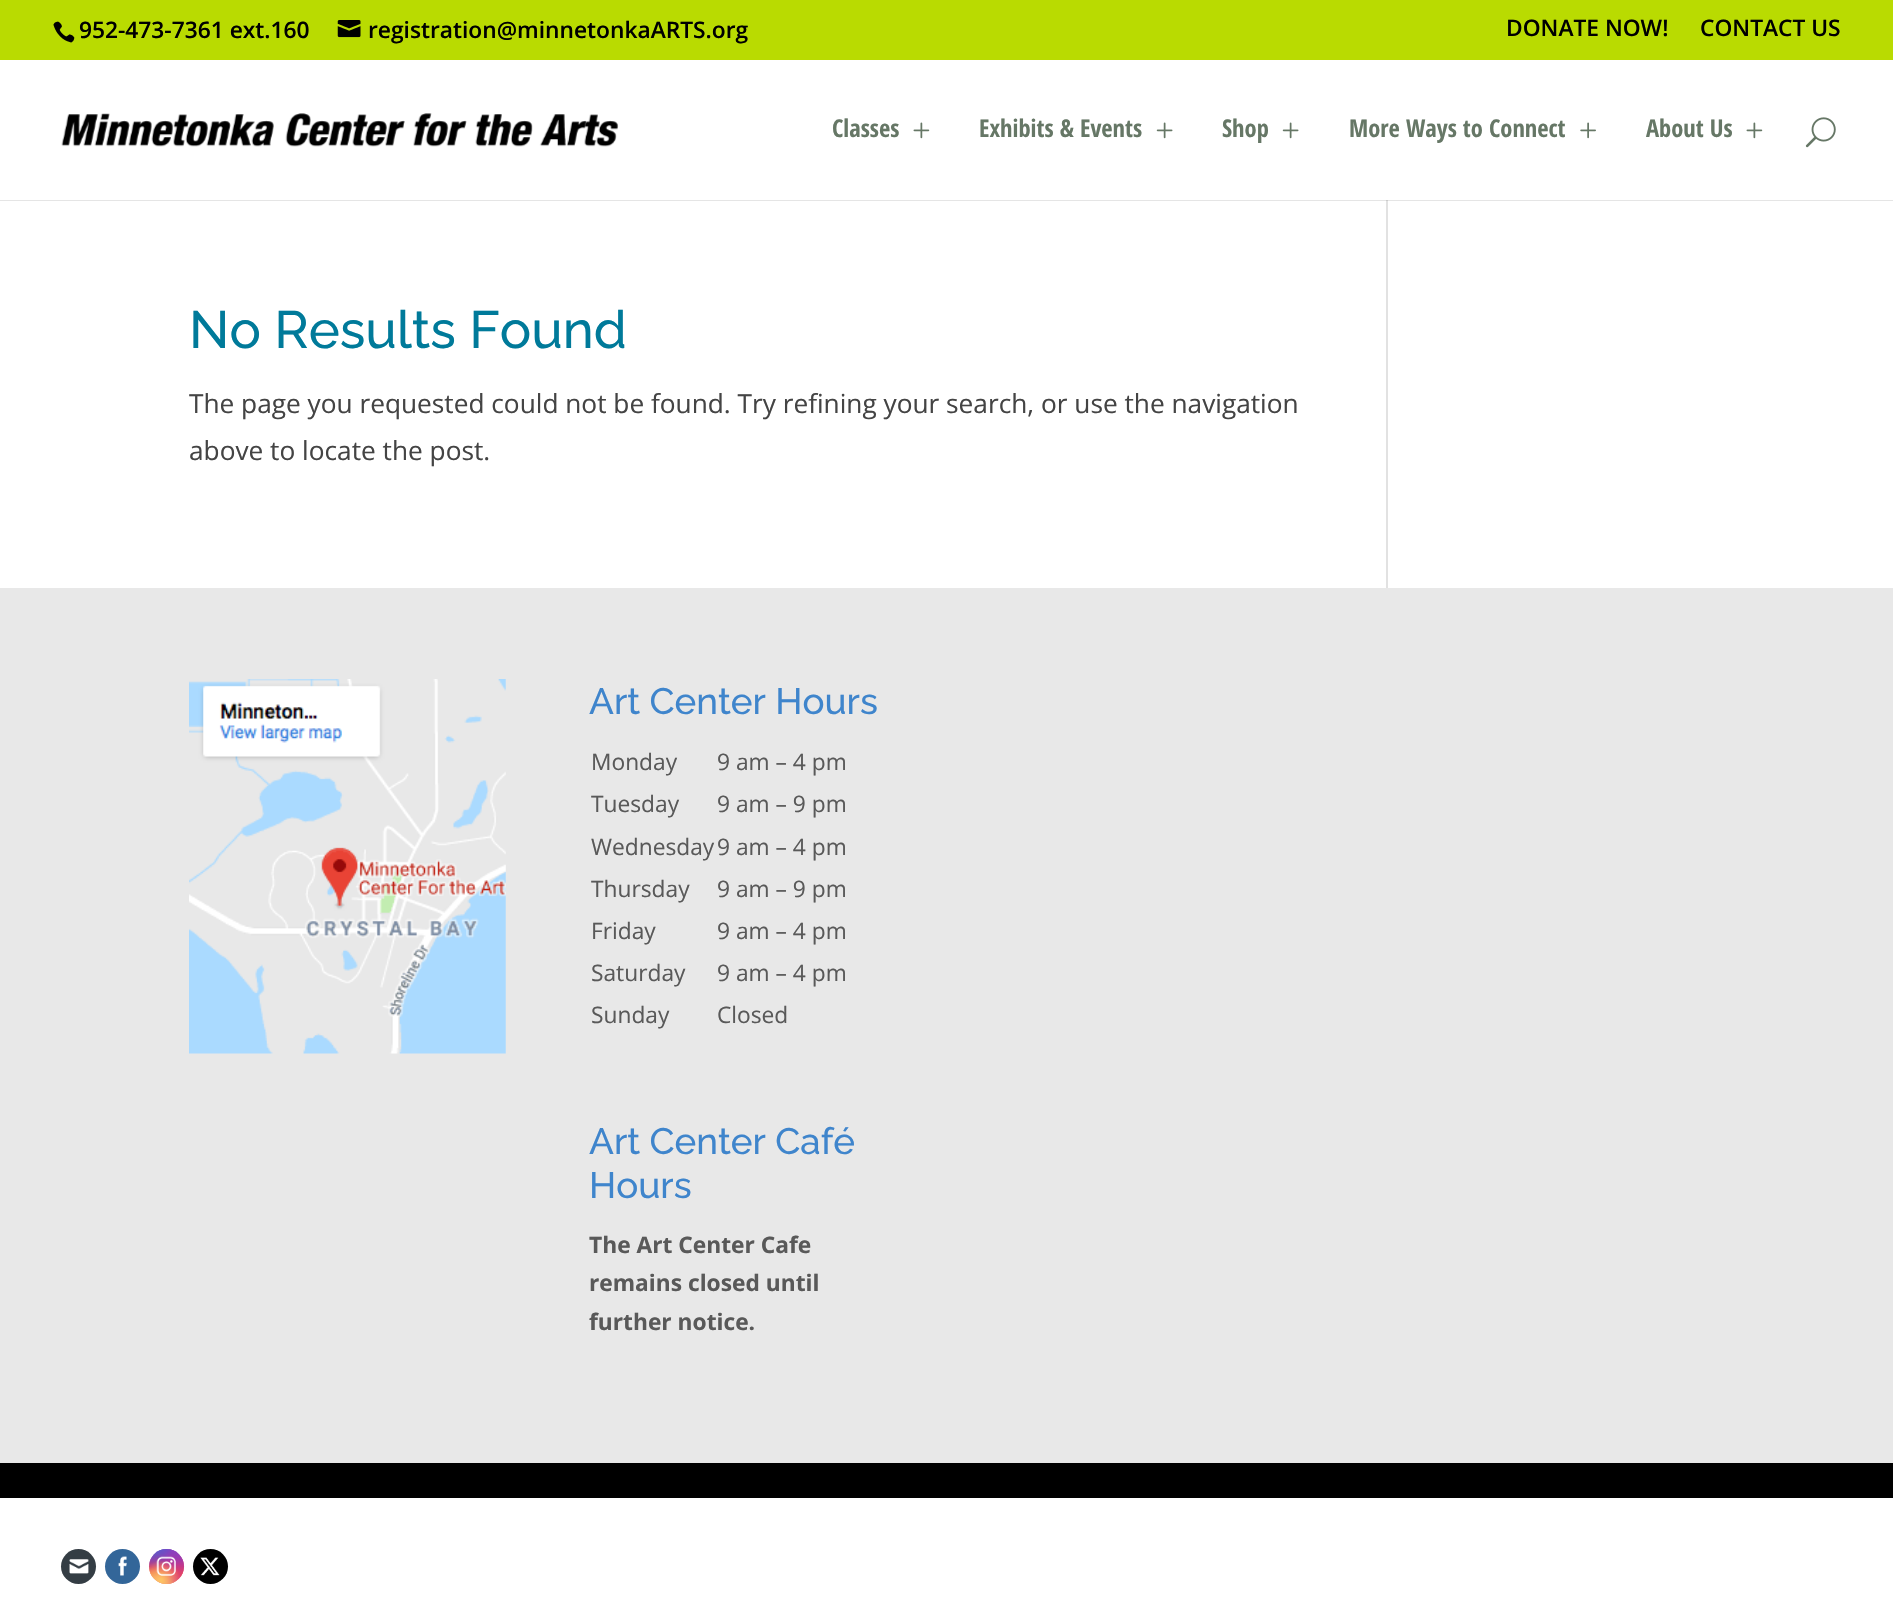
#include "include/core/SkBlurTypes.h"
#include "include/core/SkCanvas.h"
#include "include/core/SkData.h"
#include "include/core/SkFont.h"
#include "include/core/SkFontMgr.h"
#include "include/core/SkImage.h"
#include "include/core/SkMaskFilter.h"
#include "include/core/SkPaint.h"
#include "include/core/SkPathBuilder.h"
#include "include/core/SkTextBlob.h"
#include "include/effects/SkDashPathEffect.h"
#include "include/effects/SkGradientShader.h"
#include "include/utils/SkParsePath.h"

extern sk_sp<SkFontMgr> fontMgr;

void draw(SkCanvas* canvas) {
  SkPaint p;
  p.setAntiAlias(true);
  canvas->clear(SK_ColorWHITE);
  p.setColor(SkColorSetRGB(185, 219, 1));
  canvas->drawRect(SkRect::MakeLTRB(0, 0, 1893, 60), p);
  canvas->drawImageRect(SkImages::DeferredFromEncodedData(SkData::MakeFromFileName("images/1.png")), SkRect::MakeLTRB(53, 21, 75, 43), SkSamplingOptions());
  canvas->drawImageRect(SkImages::DeferredFromEncodedData(SkData::MakeFromFileName("images/2.png")), SkRect::MakeLTRB(337, 20, 361, 38), SkSamplingOptions());
  p.setColor(SkColorSetRGB(226, 226, 226));
  canvas->drawRect(SkRect::MakeLTRB(1386, 198, 1388, 588), p);
  p.setColor(SkColorSetARGB(26, 0, 0, 0));
  canvas->drawPath(SkPathBuilder().moveTo(0, 200).lineTo(0, 201).lineTo(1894, 201).lineTo(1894, 61).lineTo(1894, 200).close().detach(), p);
  p.setColor(SK_ColorWHITE);
  canvas->drawRect(SkRect::MakeLTRB(1386, 198, 1388, 200), p);
  canvas->drawImageRect(SkImages::DeferredFromEncodedData(SkData::MakeFromFileName("images/3.png")), SkRect::MakeLTRB(61, 113, 619, 147), SkSamplingOptions());
  canvas->drawImageRect(SkImages::DeferredFromEncodedData(SkData::MakeFromFileName("images/4.png")), SkRect::MakeLTRB(913, 122, 930, 139), SkSamplingOptions());
  canvas->drawImageRect(SkImages::DeferredFromEncodedData(SkData::MakeFromFileName("images/5.png")), SkRect::MakeLTRB(1156, 122, 1173, 139), SkSamplingOptions());
  canvas->drawImageRect(SkImages::DeferredFromEncodedData(SkData::MakeFromFileName("images/5.png")), SkRect::MakeLTRB(1282, 122, 1299, 139), SkSamplingOptions());
  canvas->drawImageRect(SkImages::DeferredFromEncodedData(SkData::MakeFromFileName("images/6.png")), SkRect::MakeLTRB(1580, 122, 1596, 139), SkSamplingOptions());
  canvas->drawImageRect(SkImages::DeferredFromEncodedData(SkData::MakeFromFileName("images/4.png")), SkRect::MakeLTRB(1746, 122, 1763, 139), SkSamplingOptions());
  canvas->drawImageRect(SkImages::DeferredFromEncodedData(SkData::MakeFromFileName("images/7.png")), SkRect::MakeLTRB(1805, 117, 1836, 148), SkSamplingOptions());
  p.setColor(SkColorSetRGB(232, 232, 232));
  canvas->drawRect(SkRect::MakeLTRB(0, 588, 1893, 1463), p);
  canvas->drawImageRect(SkImages::DeferredFromEncodedData(SkData::MakeFromFileName("images/8.png")), SkRect::MakeLTRB(189, 679, 506, 1054), SkSamplingOptions());
  p.setColor(SK_ColorBLACK);
  canvas->drawRect(SkRect::MakeLTRB(0, 1463, 1893, 1498), p);
  p.setColor(SkColorSetRGB(52, 61, 68));
  canvas->drawCircle(78.5f, 1566.5f, 17.5f, p);
  canvas->drawImageRect(SkImages::DeferredFromEncodedData(SkData::MakeFromFileName("images/9.png")), SkRect::MakeLTRB(69, 1559, 89, 1574), SkSamplingOptions());
  p.setColor(SkColorSetRGB(51, 102, 153));
  canvas->drawCircle(122.5f, 1566.5f, 17.5f, p);
  canvas->drawImageRect(SkImages::DeferredFromEncodedData(SkData::MakeFromFileName("images/10.png")), SkRect::MakeLTRB(118, 1556, 127, 1576), SkSamplingOptions());
  {
    const SkColor colors[] = {SkColorSetRGB(101, 89, 202), SkColorSetRGB(188, 49, 143), SkColorSetRGB(227, 63, 95), SkColorSetRGB(247, 118, 56), SkColorSetRGB(254, 198, 109)};
    const float stops[] = {0, 0.3f, 0.5f, 0.7f, 1};
    const SkPoint ends[] = {{166, 1549}, {166, 1584}};
    p.setShader(SkGradientShader::MakeLinear(ends, colors, stops, 5, SkTileMode::kClamp));
    p.setAlpha(255);
  }
  canvas->drawCircle(166.5f, 1566.5f, 17.5f, p);
  {
    const SkColor colors[] = {SkColorSetRGB(217, 49, 122), SkColorSetARGB(0, 217, 49, 122)};
    const float stops[] = {0, 1};
    p.setShader(SkGradientShader::MakeRadial({184, 1584}, 49, colors, stops, 2, SkTileMode::kClamp));
    p.setAlpha(255);
  }
  canvas->drawCircle(166.5f, 1566.5f, 17.5f, p);
  {
    const SkColor colors[] = {SkColorSetRGB(137, 61, 194), SkColorSetARGB(0, 137, 61, 194)};
    const float stops[] = {0, 0.5f};
    SkMatrix m = SkMatrix::Translate(170, 1542).preScale(30, 59);
    p.setShader(SkGradientShader::MakeRadial({0, 0}, 1, colors, stops, 2, SkTileMode::kClamp, 0, &m));
    p.setAlpha(255);
  }
  canvas->drawCircle(166.5f, 1566.5f, 17.5f, p);
  {
    const SkColor colors[] = {SkColorSetRGB(137, 61, 194), SkColorSetARGB(0, 137, 61, 194)};
    const float stops[] = {0, 0.5f};
    p.setShader(SkGradientShader::MakeRadial({184, 1549}, 49, colors, stops, 2, SkTileMode::kClamp));
    p.setAlpha(255);
  }
  canvas->drawCircle(166.5f, 1566.5f, 17.5f, p);
  {
    const SkColor colors[] = {SkColorSetRGB(82, 88, 207), SkColorSetARGB(0, 82, 88, 207)};
    const float stops[] = {0, 0.5f};
    SkMatrix m = SkMatrix::Translate(156, 1531).preScale(40, 74);
    p.setShader(SkGradientShader::MakeRadial({0, 0}, 1, colors, stops, 2, SkTileMode::kClamp, 0, &m));
    p.setAlpha(255);
  }
  canvas->drawCircle(166.5f, 1566.5f, 17.5f, p);
  {
    const SkColor colors[] = {SkColorSetRGB(82, 88, 207), SkColorSetARGB(0, 82, 88, 207)};
    const float stops[] = {0, 0.5f};
    SkMatrix m = SkMatrix::Translate(149, 1540).preScale(49, 62);
    p.setShader(SkGradientShader::MakeRadial({0, 0}, 1, colors, stops, 2, SkTileMode::kClamp, 0, &m));
    p.setAlpha(255);
  }
  canvas->drawCircle(166.5f, 1566.5f, 17.5f, p);
  {
    const SkColor colors[] = {SkColorSetRGB(254, 197, 100), SkColorSetARGB(0, 254, 197, 100)};
    const float stops[] = {0, 0.5f};
    p.setShader(SkGradientShader::MakeRadial({149, 1598}, 60, colors, stops, 2, SkTileMode::kClamp));
    p.setAlpha(255);
  }
  canvas->drawCircle(166.5f, 1566.5f, 17.5f, p);
  {
    const SkColor colors[] = {SkColorSetRGB(254, 197, 100), SkColorSetARGB(0, 254, 197, 100)};
    const float stops[] = {0, 0.5f};
    p.setShader(SkGradientShader::MakeRadial({161, 1580}, 39, colors, stops, 2, SkTileMode::kClamp));
    p.setAlpha(255);
  }
  canvas->drawCircle(166.5f, 1566.5f, 17.5f, p);
  canvas->drawImageRect(SkImages::DeferredFromEncodedData(SkData::MakeFromFileName("images/11.png")), SkRect::MakeLTRB(156, 1556, 176, 1576), SkSamplingOptions());
  p.setShader(nullptr);
  p.setColor(SK_ColorBLACK);
  canvas->drawCircle(210.5f, 1566.5f, 17.5f, p);
  canvas->drawImageRect(SkImages::DeferredFromEncodedData(SkData::MakeFromFileName("images/12.png")), SkRect::MakeLTRB(200, 1557, 220, 1576), SkSamplingOptions());
  SkFont font1(fontMgr->matchFamilyStyle("Open Sans", SkFontStyle(600, SkFontStyle::kNormal_Width, SkFontStyle::kUpright_Slant)), 22.75f);
  font1.setSubpixel(true);
  canvas->drawString("952-473-7361 ext.160", 79, 38, font1, p);
  canvas->drawString("registration@minnetonkaARTS.org", 368, 38, font1, p);
  canvas->drawString("DONATE NOW!", 1506, 36, font1, p);
  canvas->drawString("CONTACT US", 1700, 36, font1, p);
  SkFont font2(fontMgr->matchFamilyStyle("Open Sans Condensed", SkFontStyle::Bold()), 24.5f);
  font2.setSubpixel(true);
  p.setColor(SkColorSetRGB(102, 119, 102));
  canvas->drawString("Classes", 832, 137, font2, p);
  canvas->drawString("Exhibits & Events", 979, 137, font2, p);
  canvas->drawString("Shop", 1222, 137, font2, p);
  canvas->drawString("More Ways to Connect", 1349, 137, font2, p);
  canvas->drawString("About Us", 1646, 137, font2, p);
  SkFont font3(fontMgr->matchFamilyStyle("Raleway", SkFontStyle(500, SkFontStyle::kNormal_Width, SkFontStyle::kUpright_Slant)), 52.5f);
  font3.setSubpixel(true);
  p.setColor(SkColorSetRGB(0, 122, 154));
  canvas->drawString("No Results Found", 189, 348, font3, p);
  SkFont font4(fontMgr->matchFamilyStyle("Open Sans", SkFontStyle::Normal()), 26.25f);
  font4.setSubpixel(true);
  p.setColor(SkColorSetRGB(68, 68, 68));
  canvas->drawString("The page you requested could not be found. Try refining your search, or use the navigation", 189, 413, font4, p);
  canvas->drawString("above to locate the post.", 189, 460, font4, p);
  SkFont font5(fontMgr->matchFamilyStyle("Raleway", SkFontStyle(500, SkFontStyle::kNormal_Width, SkFontStyle::kUpright_Slant)), 36.75f);
  font5.setSubpixel(true);
  p.setColor(SkColorSetRGB(63, 133, 204));
  canvas->drawString("Art Center Hours", 589, 714, font5, p);
  SkFont font6(fontMgr->matchFamilyStyle("Open Sans", SkFontStyle::Normal()), 22.75f);
  font6.setSubpixel(true);
  p.setColor(SkColorSetRGB(89, 89, 89));
  canvas->drawString("Monday", 591, 770, font6, p);
  canvas->drawString("9 am – 4 pm", 717, 770, font6, p);
  canvas->drawString("Tuesday", 591, 812, font6, p);
  canvas->drawString("9 am – 9 pm", 717, 812, font6, p);
  canvas->drawString("Wednesday", 591, 855, font6, p);
  canvas->drawString("9 am – 4 pm", 717, 855, font6, p);
  canvas->drawString("Thursday", 591, 897, font6, p);
  canvas->drawString("9 am – 9 pm", 717, 897, font6, p);
  canvas->drawString("Friday", 591, 939, font6, p);
  canvas->drawString("9 am – 4 pm", 717, 939, font6, p);
  canvas->drawString("Saturday", 591, 981, font6, p);
  canvas->drawString("9 am – 4 pm", 717, 981, font6, p);
  canvas->drawString("Sunday", 591, 1023, font6, p);
  canvas->drawString("Closed", 717, 1023, font6, p);
  p.setColor(SkColorSetRGB(63, 133, 204));
  canvas->drawString("Art Center Café", 589, 1154, font5, p);
  canvas->drawString("Hours", 589, 1198, font5, p);
  SkFont font7(fontMgr->matchFamilyStyle("Open Sans", SkFontStyle::Bold()), 22.75f);
  font7.setSubpixel(true);
  p.setColor(SkColorSetRGB(89, 89, 89));
  canvas->drawString("The Art Center Cafe", 589, 1253, font7, p);
  canvas->drawString("remains closed until", 589, 1291, font7, p);
  canvas->drawString("further notice.", 589, 1330, font7, p);
}
